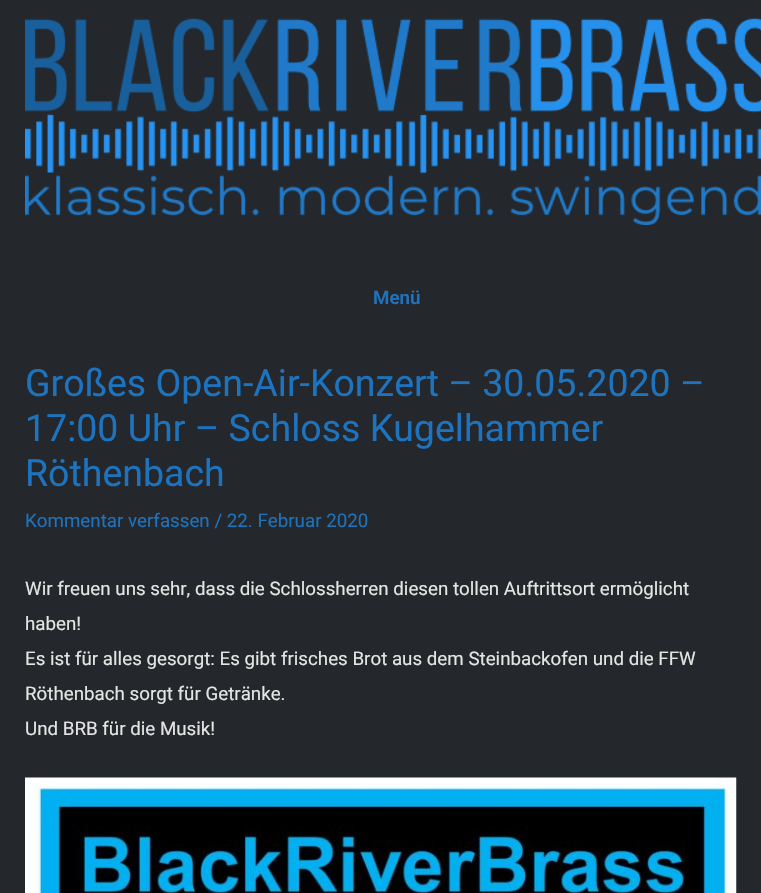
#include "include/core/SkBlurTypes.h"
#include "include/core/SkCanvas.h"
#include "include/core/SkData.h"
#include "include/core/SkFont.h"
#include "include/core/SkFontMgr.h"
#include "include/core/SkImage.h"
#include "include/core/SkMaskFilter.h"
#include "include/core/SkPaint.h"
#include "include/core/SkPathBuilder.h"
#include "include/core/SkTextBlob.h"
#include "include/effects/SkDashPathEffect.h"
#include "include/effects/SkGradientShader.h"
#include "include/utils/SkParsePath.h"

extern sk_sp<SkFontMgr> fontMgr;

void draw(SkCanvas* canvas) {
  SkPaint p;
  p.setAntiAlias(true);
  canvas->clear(SkColorSetRGB(36, 39, 43));
  canvas->drawImageRect(SkImages::DeferredFromEncodedData(SkData::MakeFromFileName("images/1.png")), SkRect::MakeLTRB(25, 18, 761, 225), SkSamplingOptions());
  canvas->drawImageRect(SkImages::DeferredFromEncodedData(SkData::MakeFromFileName("images/2.png")), SkRect::MakeLTRB(25, 777, 737, 893), SkSamplingOptions());
  SkFont font1(fontMgr->matchFamilyStyle("Roboto", SkFontStyle(600, SkFontStyle::kNormal_Width, SkFontStyle::kUpright_Slant)), 18.75f);
  font1.setSubpixel(true);
  p.setColor(SkColorSetRGB(30, 115, 190));
  canvas->drawString("Menü", 373, 304, font1, p);
  SkFont font2(fontMgr->matchFamilyStyle("Roboto", SkFontStyle::Normal()), 37.5f);
  font2.setSubpixel(true);
  canvas->drawString("Großes Open-Air-Konzert – 30.05.2020 –", 25, 396, font2, p);
  canvas->drawString("17:00 Uhr – Schloss Kugelhammer", 25, 441, font2, p);
  canvas->drawString("Röthenbach", 25, 486, font2, p);
  SkFont font3(fontMgr->matchFamilyStyle("Roboto", SkFontStyle::Normal()), 18.75f);
  font3.setSubpixel(true);
  canvas->drawString("Kommentar verfassen / 22. Februar 2020", 25, 527, font3, p);
  p.setColor(SkColorSetRGB(229, 230, 228));
  canvas->drawString("Wir freuen uns sehr, dass die Schlossherren diesen tollen Auftrittsort ermöglicht", 25, 595, font3, p);
  canvas->drawString("haben!", 25, 630, font3, p);
  canvas->drawString("Es ist für alles gesorgt: Es gibt frisches Brot aus dem Steinbackofen und die FFW", 25, 665, font3, p);
  canvas->drawString("Röthenbach sorgt für Getränke.", 25, 700, font3, p);
  canvas->drawString("Und BRB für die Musik!", 25, 735, font3, p);
}
